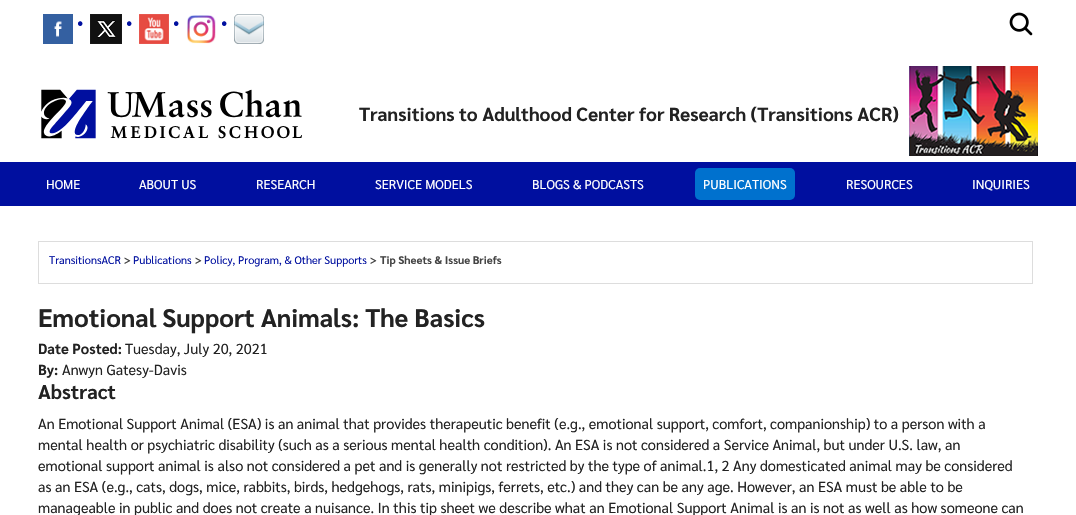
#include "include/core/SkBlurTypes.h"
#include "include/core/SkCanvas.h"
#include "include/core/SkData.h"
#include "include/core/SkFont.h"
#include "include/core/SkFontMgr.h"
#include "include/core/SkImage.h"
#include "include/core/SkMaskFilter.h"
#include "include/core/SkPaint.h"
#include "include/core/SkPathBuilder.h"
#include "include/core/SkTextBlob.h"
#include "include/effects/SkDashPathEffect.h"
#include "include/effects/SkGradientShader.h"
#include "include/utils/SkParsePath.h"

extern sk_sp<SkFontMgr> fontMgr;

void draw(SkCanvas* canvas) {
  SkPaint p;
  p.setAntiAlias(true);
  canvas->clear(SK_ColorWHITE);
  canvas->drawImageRect(SkImages::DeferredFromEncodedData(SkData::MakeFromFileName("images/1.png")), SkRect::MakeLTRB(43, 14, 73, 44), SkSamplingOptions());
  canvas->drawImageRect(SkImages::DeferredFromEncodedData(SkData::MakeFromFileName("images/2.png")), SkRect::MakeLTRB(90, 14, 122, 44), SkSamplingOptions());
  canvas->drawImageRect(SkImages::DeferredFromEncodedData(SkData::MakeFromFileName("images/3.png")), SkRect::MakeLTRB(139, 14, 169, 44), SkSamplingOptions());
  canvas->drawImageRect(SkImages::DeferredFromEncodedData(SkData::MakeFromFileName("images/4.png")), SkRect::MakeLTRB(187, 15, 216, 44), SkSamplingOptions());
  canvas->drawImageRect(SkImages::DeferredFromEncodedData(SkData::MakeFromFileName("images/5.png")), SkRect::MakeLTRB(234, 14, 264, 44), SkSamplingOptions());
  canvas->drawImageRect(SkImages::DeferredFromEncodedData(SkData::MakeFromFileName("images/6.png")), SkRect::MakeLTRB(1009, 12, 1033, 36), SkSamplingOptions());
  canvas->drawImageRect(SkImages::DeferredFromEncodedData(SkData::MakeFromFileName("images/7.png")), SkRect::MakeLTRB(41, 89, 302, 139), SkSamplingOptions());
  canvas->drawImageRect(SkImages::DeferredFromEncodedData(SkData::MakeFromFileName("images/8.png")), SkRect::MakeLTRB(909, 66, 1038, 156), SkSamplingOptions());
  p.setColor(SkColorSetRGB(0, 15, 159));
  canvas->drawRect(SkRect::MakeLTRB(0, 162, 1076, 206), p);
  p.setColor(SkColorSetRGB(0, 113, 206));
  canvas->drawRoundRect(SkRect::MakeLTRB(695, 168, 795, 200), 5, 5, p);
  p.setStyle(SkPaint::kStroke_Style);
  p.setStrokeWidth(1);
  p.setColor(SkColorSetRGB(221, 221, 221));
  canvas->drawRect(SkRect::MakeLTRB(38.5f, 241.5f, 1032.5f, 283.5f), p);
  SkFont font1(fontMgr->matchFamilyStyle("Sarabun", SkFontStyle(500, SkFontStyle::kNormal_Width, SkFontStyle::kUpright_Slant)), 32);
  font1.setSubpixel(true);
  p.setStyle(SkPaint::kFill_Style);
  p.setColor(SkColorSetRGB(0, 15, 159));
  canvas->drawString("·", 76, 32, font1, p);
  canvas->drawString("·", 125, 32, font1, p);
  canvas->drawString("·", 172, 32, font1, p);
  canvas->drawString("·", 220, 32, font1, p);
  SkFont font2(fontMgr->matchFamilyStyle("Sarabun", SkFontStyle::Bold()), 18.85f);
  font2.setSubpixel(true);
  p.setColor(SkColorSetRGB(34, 34, 34));
  canvas->drawString("Transitions to Adulthood Center for Research (Transitions ACR)", 359, 121, font2, p);
  SkFont font3(fontMgr->matchFamilyStyle("Sarabun", SkFontStyle::Normal()), 12.75f);
  font3.setSubpixel(true);
  p.setColor(SK_ColorWHITE);
  canvas->drawString("HOME", 46, 189, font3, p);
  canvas->drawString("ABOUT US", 139, 189, font3, p);
  canvas->drawString("RESEARCH", 256, 189, font3, p);
  canvas->drawString("SERVICE MODELS", 375, 189, font3, p);
  canvas->drawString("BLOGS & PODCASTS", 532, 189, font3, p);
  canvas->drawString("PUBLICATIONS", 703, 189, font3, p);
  canvas->drawString("RESOURCES", 846, 189, font3, p);
  canvas->drawString("INQUIRIES", 972, 189, font3, p);
  SkFont font4(fontMgr->matchFamilyStyle("Sarabun", SkFontStyle::Normal()), 11);
  font4.setSubpixel(true);
  p.setColor(SkColorSetRGB(0, 15, 159));
  canvas->drawString("TransitionsACR", 49, 264, font4, p);
  SkFont font5(fontMgr->matchFamilyStyle("Sarabun", SkFontStyle::Bold()), 11);
  font5.setSubpixel(true);
  p.setColor(SkColorSetRGB(68, 68, 68));
  canvas->drawString(">", 124, 264, font5, p);
  p.setColor(SkColorSetRGB(0, 15, 159));
  canvas->drawString("Publications", 133, 264, font4, p);
  p.setColor(SkColorSetRGB(68, 68, 68));
  canvas->drawString(">", 195, 264, font5, p);
  p.setColor(SkColorSetRGB(0, 15, 159));
  canvas->drawString("Policy, Program, & Other Supports", 204, 264, font4, p);
  p.setColor(SkColorSetRGB(68, 68, 68));
  canvas->drawString(">", 370, 264, font5, p);
  canvas->drawString("Tip Sheets & Issue Briefs", 380, 264, font5, p);
  SkFont font6(fontMgr->matchFamilyStyle("Sarabun", SkFontStyle::Bold()), 25.4f);
  font6.setSubpixel(true);
  p.setColor(SkColorSetRGB(34, 34, 34));
  canvas->drawString("Emotional Support Animals: The Basics", 38, 327, font6, p);
  SkFont font7(fontMgr->matchFamilyStyle("Sarabun", SkFontStyle::Bold()), 14.5f);
  font7.setSubpixel(true);
  canvas->drawString("Date Posted:", 38, 354, font7, p);
  SkFont font8(fontMgr->matchFamilyStyle("Sarabun", SkFontStyle::Normal()), 14.5f);
  font8.setSubpixel(true);
  canvas->drawString("Tuesday, July 20, 2021", 125, 354, font8, p);
  canvas->drawString("By:", 38, 375, font7, p);
  canvas->drawString("Anwyn Gatesy-Davis", 62, 375, font8, p);
  SkFont font9(fontMgr->matchFamilyStyle("Sarabun", SkFontStyle::Bold()), 20);
  font9.setSubpixel(true);
  canvas->drawString("Abstract", 38, 399, font9, p);
  canvas->drawString("An Emotional Support Animal (ESA) is an animal that provides therapeutic benefit (e.g., emotional support, comfort, companionship) to a person with a", 38, 429, font8, p);
  canvas->drawString("mental health or psychiatric disability (such as a serious mental health condition). An ESA is not considered a Service Animal, but under U.S. law, an", 38, 450, font8, p);
  canvas->drawString("emotional support animal is also not considered a pet and is generally not restricted by the type of animal.1, 2 Any domesticated animal may be considered", 38, 471, font8, p);
  canvas->drawString("as an ESA (e.g., cats, dogs, mice, rabbits, birds, hedgehogs, rats, minipigs, ferrets, etc.) and they can be any age. However, an ESA must be able to be", 38, 492, font8, p);
  canvas->drawString("manageable in public and does not create a nuisance. In this tip sheet we describe what an Emotional Support Animal is an is not as well as how someone can", 38, 513, font8, p);
}
